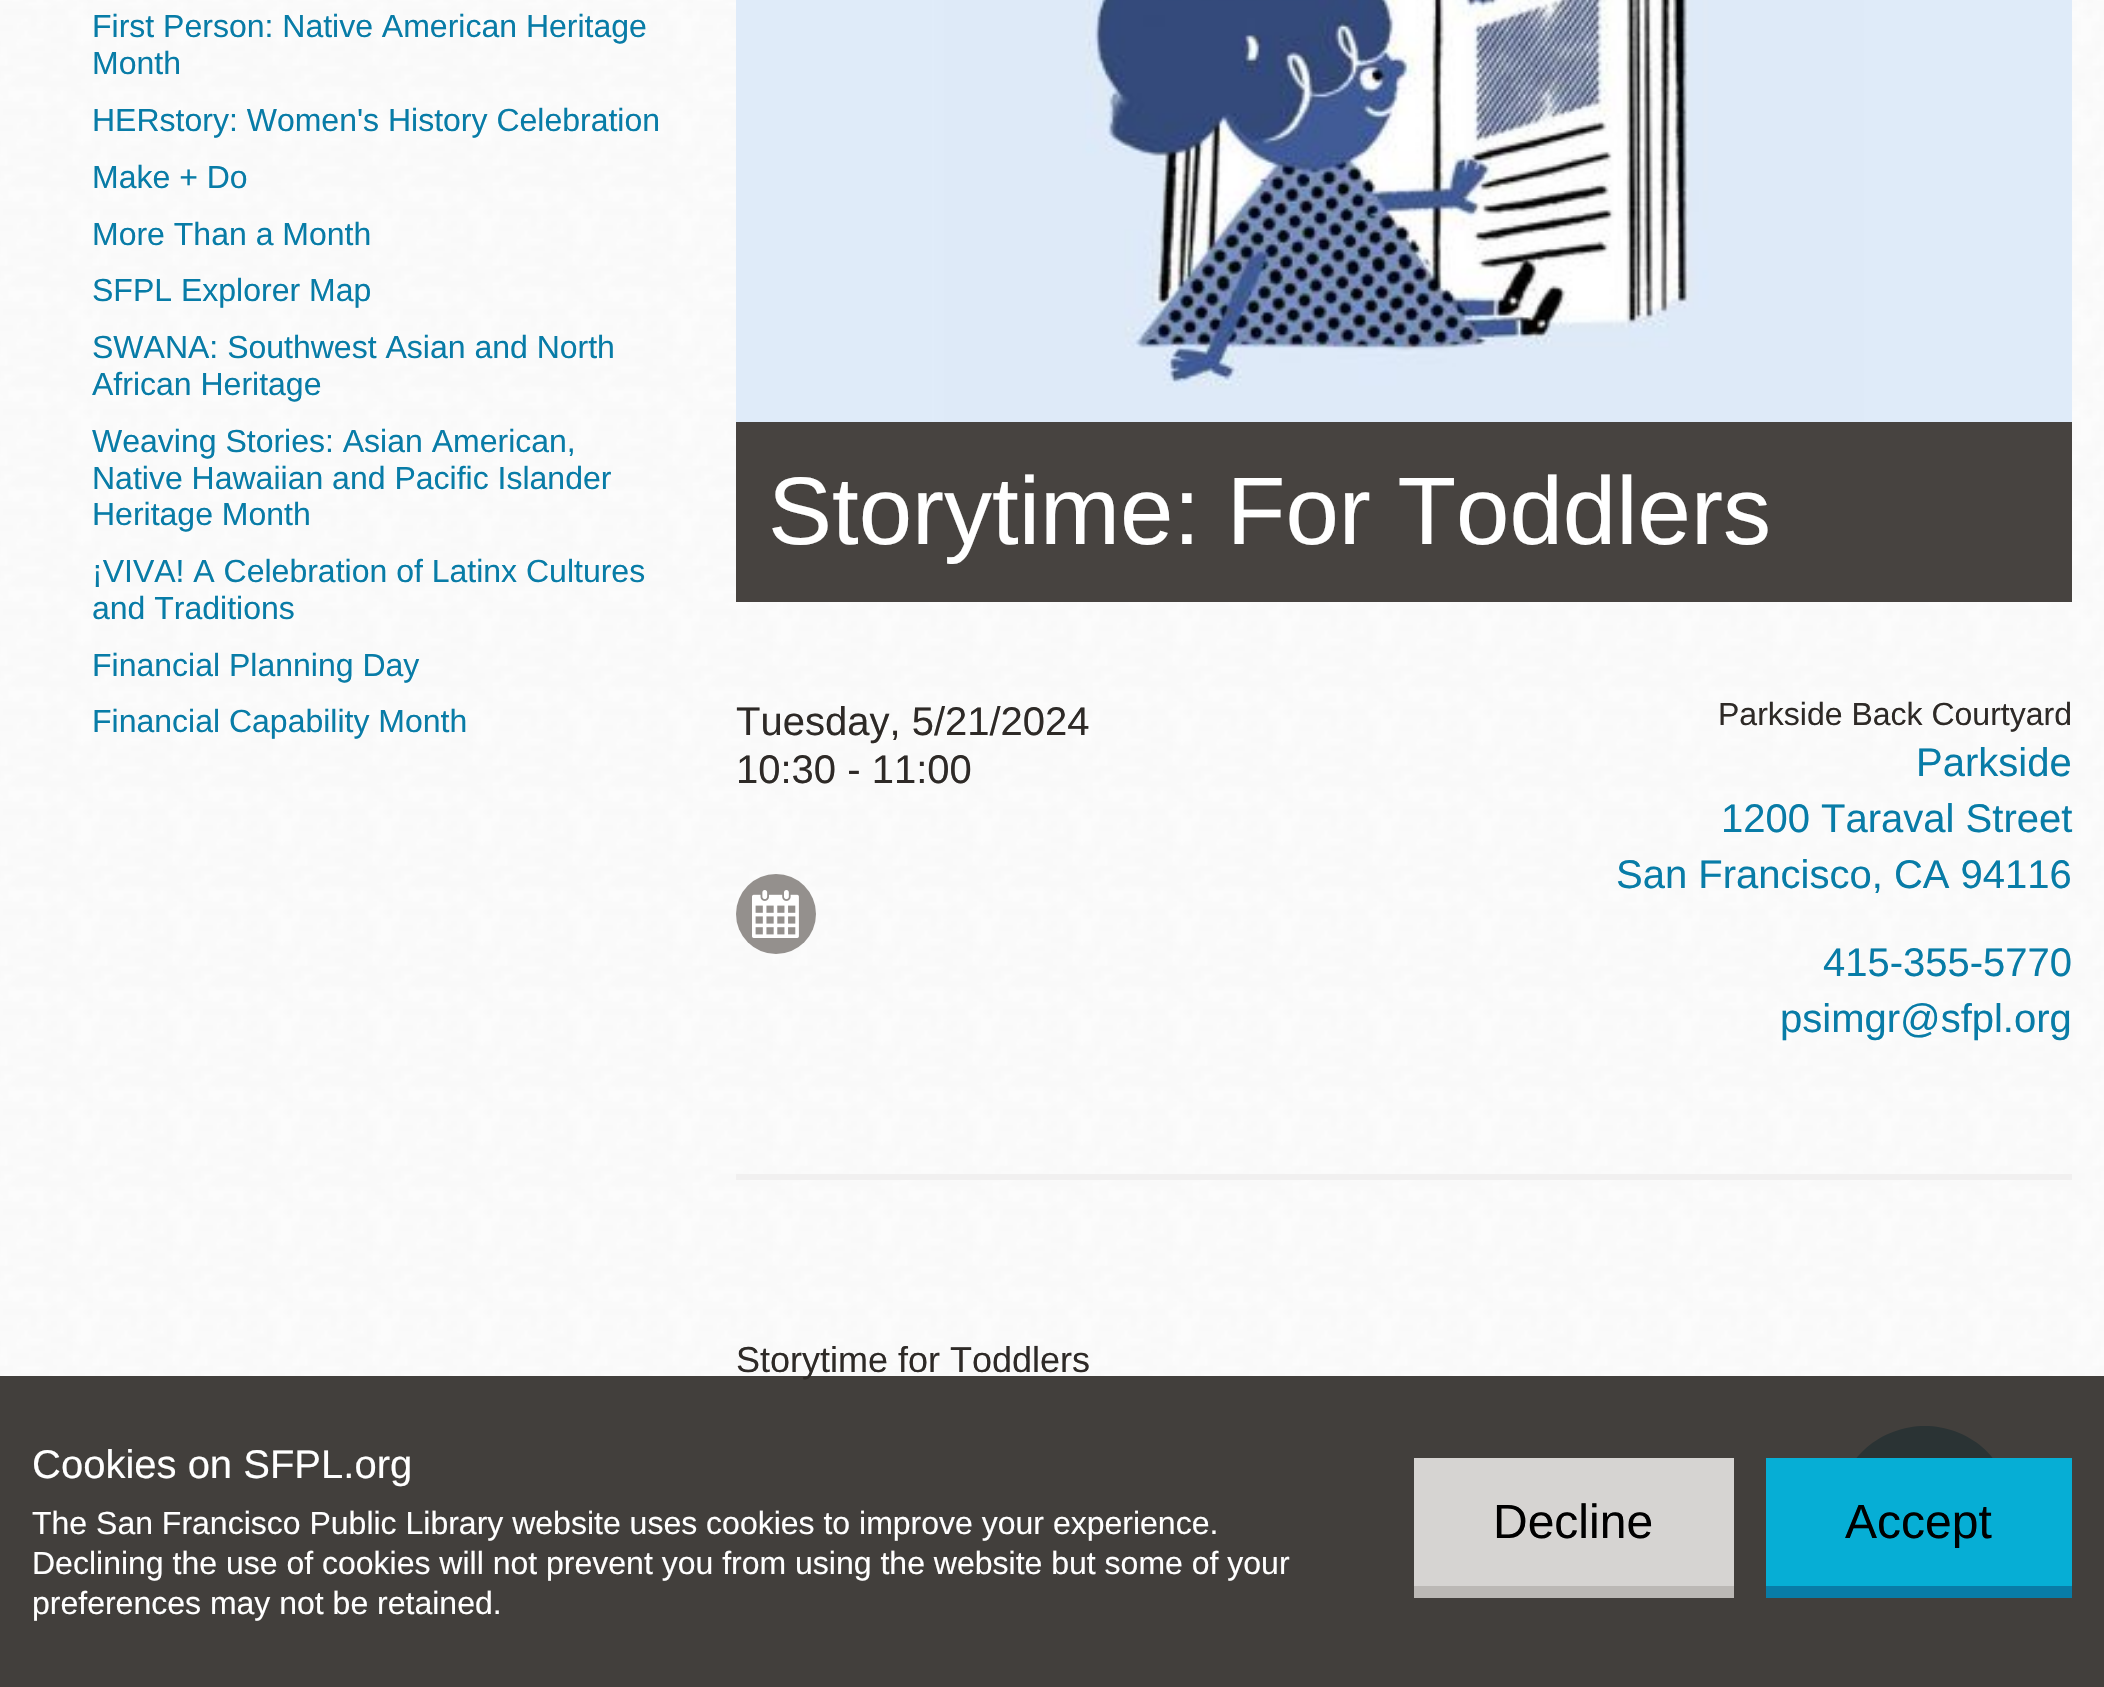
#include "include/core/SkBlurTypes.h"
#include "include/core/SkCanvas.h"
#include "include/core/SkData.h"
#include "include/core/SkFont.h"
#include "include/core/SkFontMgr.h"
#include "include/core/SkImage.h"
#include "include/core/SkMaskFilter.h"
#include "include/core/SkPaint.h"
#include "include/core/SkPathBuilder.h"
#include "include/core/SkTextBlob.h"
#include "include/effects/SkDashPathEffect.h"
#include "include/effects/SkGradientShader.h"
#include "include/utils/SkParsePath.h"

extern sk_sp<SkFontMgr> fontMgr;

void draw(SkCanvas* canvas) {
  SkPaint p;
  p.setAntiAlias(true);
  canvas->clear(SK_ColorWHITE);
  canvas->drawImageRect(SkImages::DeferredFromEncodedData(SkData::MakeFromFileName("images/1.png")), SkRect::MakeLTRB(0, 0, 2104, 1687), SkSamplingOptions());
  p.setColor(SkColorSetRGB(71, 67, 64));
  canvas->drawRect(SkRect::MakeLTRB(736, 422, 2072, 602), p);
  canvas->drawImageRect(SkImages::DeferredFromEncodedData(SkData::MakeFromFileName("images/2.png")), SkRect::MakeLTRB(736, 0, 2072, 422), SkSamplingOptions());
  p.setColor(SkColorSetRGB(148, 144, 141));
  canvas->drawCircle(776, 914, 40, p);
  canvas->drawImageRect(SkImages::DeferredFromEncodedData(SkData::MakeFromFileName("images/3.png")), SkRect::MakeLTRB(752, 890, 799, 938), SkSamplingOptions());
  p.setColor(SkColorSetRGB(241, 240, 240));
  canvas->drawRect(SkRect::MakeLTRB(736, 1174, 2072, 1180), p);
  p.setColor(SkColorSetRGB(8, 124, 167));
  canvas->drawPath(SkPathBuilder().moveTo(1925, 1426).cubicTo(1882, 1426, 1840, 1458, 1841, 1504).cubicTo(1842, 1517, 1847, 1531, 1854, 1542).lineTo(1851, 1574).cubicTo(1851, 1576, 1848, 1585, 1854, 1583).lineTo(1887, 1568).cubicTo(1906, 1577, 1927, 1578, 1946, 1574).cubicTo(1963, 1569, 1979, 1560, 1990, 1547).cubicTo(2001, 1534, 2008, 1518, 2008, 1501).cubicTo(2008, 1457, 1967, 1426, 1925, 1426).close().detach(), p);
  SkFont font1(fontMgr->matchFamilyStyle("Liberation Sans", SkFontStyle::Normal()), 32);
  font1.setSubpixel(true);
  canvas->drawString("First Person: Native American Heritage", 92, 37, font1, p);
  canvas->drawString("Month", 92, 74, font1, p);
  canvas->drawString("HERstory: Women's History Celebration", 92, 131, font1, p);
  canvas->drawString("Make + Do", 92, 188, font1, p);
  canvas->drawString("More Than a Month", 92, 245, font1, p);
  canvas->drawString("SFPL Explorer Map", 92, 301, font1, p);
  canvas->drawString("SWANA: Southwest Asian and North", 92, 358, font1, p);
  canvas->drawString("African Heritage", 92, 395, font1, p);
  canvas->drawString("Weaving Stories: Asian American,", 92, 452, font1, p);
  canvas->drawString("Native Hawaiian and Pacific Islander", 92, 489, font1, p);
  canvas->drawString("Heritage Month", 92, 525, font1, p);
  canvas->drawString("¡VIVA! A Celebration of Latinx Cultures", 92, 582, font1, p);
  canvas->drawString("and Traditions", 92, 619, font1, p);
  canvas->drawString("Financial Planning Day", 92, 676, font1, p);
  canvas->drawString("Financial Capability Month", 92, 732, font1, p);
  SkFont font2(fontMgr->matchFamilyStyle("Liberation Sans", SkFontStyle::Normal()), 96);
  font2.setSubpixel(true);
  p.setColor(SK_ColorWHITE);
  canvas->drawString("Storytime: For Toddlers", 768, 544, font2, p);
  SkFont font3(fontMgr->matchFamilyStyle("Liberation Sans", SkFontStyle::Normal()), 40);
  font3.setSubpixel(true);
  p.setColor(SkColorSetRGB(46, 42, 39));
  canvas->drawString("Tuesday, 5/21/2024", 736, 735, font3, p);
  canvas->drawString("10:30 - 11:00", 736, 783, font3, p);
  canvas->drawString("Parkside Back Courtyard", 1718, 725, font1, p);
  p.setColor(SkColorSetRGB(8, 124, 167));
  canvas->drawString("Parkside", 1916, 776, font3, p);
  canvas->drawString("1200 Taraval Street", 1721, 832, font3, p);
  canvas->drawString("San Francisco, CA 94116", 1616, 888, font3, p);
  canvas->drawString("415-355-5770", 1823, 976, font3, p);
  canvas->drawString("psimgr@sfpl.org", 1780, 1032, font3, p);
  SkFont font4(fontMgr->matchFamilyStyle("Liberation Sans", SkFontStyle::Normal()), 36);
  font4.setSubpixel(true);
  p.setColor(SkColorSetRGB(46, 42, 39));
  canvas->drawString("Storytime for Toddlers", 736, 1372, font4, p);
  p.setColor(SkColorSetARGB(230, 46, 42, 39));
  canvas->drawRect(SkRect::MakeLTRB(0, 1376, 2104, 1687), p);
  p.setColor(SK_ColorWHITE);
  canvas->drawString("Cookies on SFPL.org", 32, 1478, font3, p);
  canvas->drawString("The San Francisco Public Library website uses cookies to improve your experience.", 32, 1534, font1, p);
  canvas->drawString("Declining the use of cookies will not prevent you from using the website but some of your", 32, 1574, font1, p);
  canvas->drawString("preferences may not be retained.", 32, 1614, font1, p);
  p.setColor(SkColorSetRGB(187, 184, 181));
  canvas->drawRect(SkRect::MakeLTRB(1414, 1586, 1734, 1598), p);
  p.setColor(SkColorSetRGB(214, 212, 210));
  canvas->drawRect(SkRect::MakeLTRB(1414, 1458, 1734, 1586), p);
  SkFont font5(fontMgr->matchFamilyStyle("Liberation Sans", SkFontStyle::Normal()), 48);
  font5.setSubpixel(true);
  p.setColor(SK_ColorBLACK);
  canvas->drawString("Decline", 1493, 1538, font5, p);
  p.setColor(SkColorSetRGB(8, 124, 167));
  canvas->drawRect(SkRect::MakeLTRB(1766, 1586, 2072, 1598), p);
  p.setColor(SkColorSetRGB(6, 174, 213));
  canvas->drawRect(SkRect::MakeLTRB(1766, 1458, 2072, 1586), p);
  p.setColor(SK_ColorBLACK);
  canvas->drawString("Accept", 1845, 1538, font5, p);
}
